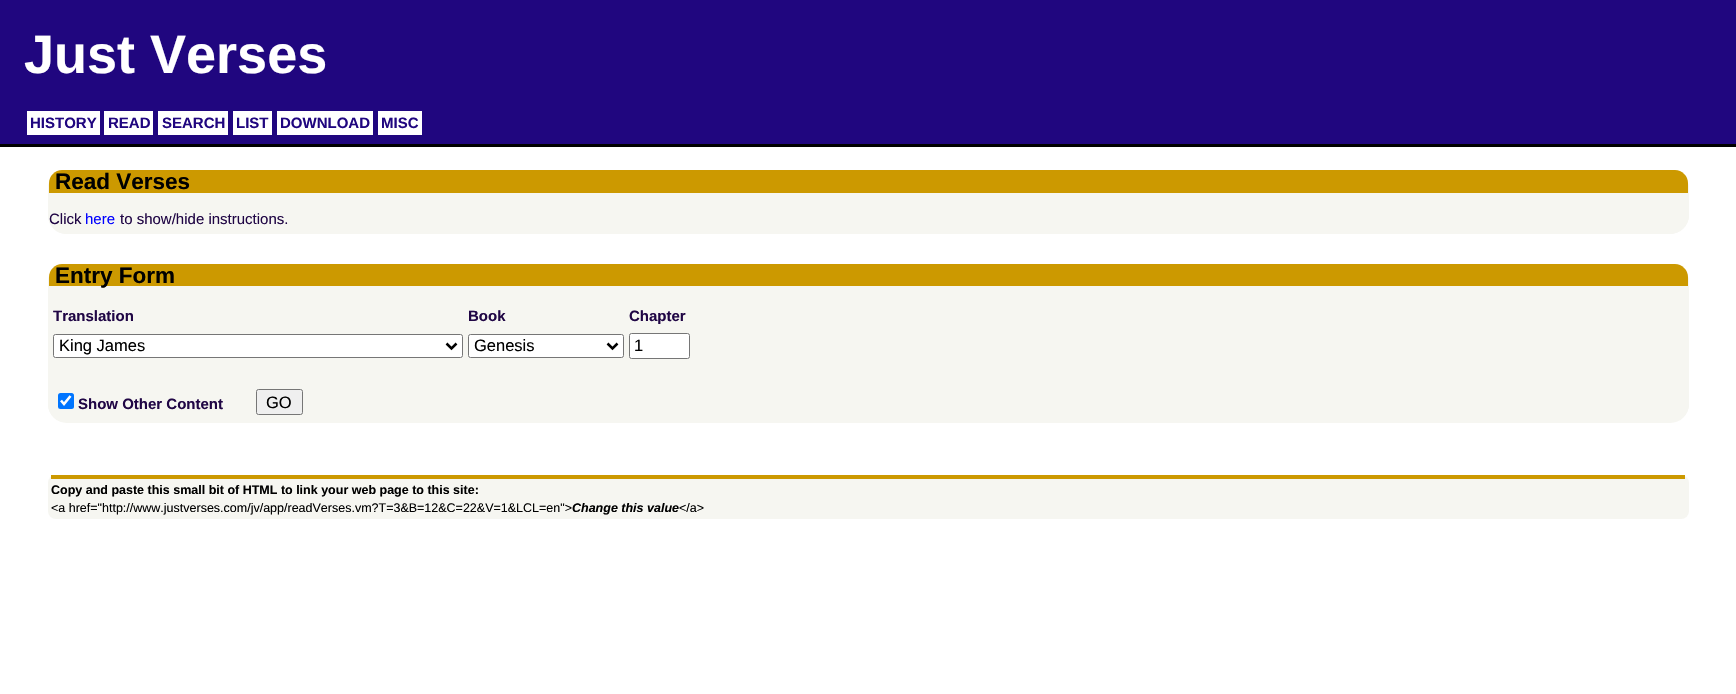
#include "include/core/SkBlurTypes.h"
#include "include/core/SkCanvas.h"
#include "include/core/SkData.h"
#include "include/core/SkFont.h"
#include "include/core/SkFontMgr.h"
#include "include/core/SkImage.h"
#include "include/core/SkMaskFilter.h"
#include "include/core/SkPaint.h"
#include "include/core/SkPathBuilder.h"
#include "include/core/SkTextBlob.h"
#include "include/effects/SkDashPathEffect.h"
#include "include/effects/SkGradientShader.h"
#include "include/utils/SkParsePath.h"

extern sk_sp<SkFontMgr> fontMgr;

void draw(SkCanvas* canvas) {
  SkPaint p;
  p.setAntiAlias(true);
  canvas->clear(SK_ColorWHITE);
  p.setColor(SkColorSetRGB(32, 6, 127));
  canvas->drawRect(SkRect::MakeLTRB(0, 0, 1736, 144), p);
  p.setColor(SK_ColorBLACK);
  canvas->drawRect(SkRect::MakeLTRB(0, 144, 1736, 147), p);
  p.setColor(SK_ColorWHITE);
  canvas->drawRect(SkRect::MakeLTRB(27, 111, 100, 135), p);
  canvas->drawRect(SkRect::MakeLTRB(104, 111, 153, 135), p);
  canvas->drawRect(SkRect::MakeLTRB(158, 111, 228, 135), p);
  canvas->drawRect(SkRect::MakeLTRB(233, 111, 272, 135), p);
  canvas->drawRect(SkRect::MakeLTRB(277, 111, 373, 135), p);
  canvas->drawRect(SkRect::MakeLTRB(378, 111, 422, 135), p);
  p.setColor(SkColorSetRGB(246, 246, 241));
  canvas->drawRoundRect(SkRect::MakeLTRB(48, 170, 1689, 234), 19, 19, p);
  canvas->drawPath(SkPathBuilder(SkPathFillType::kEvenOdd).moveTo(66, 170).lineTo(1670, 170).cubicTo(1680, 170, 1689, 178, 1689, 189).lineTo(1689, 215).cubicTo(1689, 225, 1680, 234, 1670, 234).lineTo(66, 234).cubicTo(56, 234, 48, 225, 48, 215).lineTo(48, 189).cubicTo(48, 178, 56, 170, 66, 170).close().moveTo(66, 170).lineTo(1670, 170).cubicTo(1680, 170, 1688, 178, 1688, 189).lineTo(1688, 215).cubicTo(1688, 223, 1680, 230, 1670, 230).lineTo(66, 230).cubicTo(57, 230, 49, 223, 49, 215).lineTo(49, 189).cubicTo(49, 178, 57, 170, 66, 170).close().detach(), p);
  p.setColor(SkColorSetRGB(204, 153, 0));
  canvas->drawPath(SkPathBuilder().moveTo(62, 170).lineTo(1675, 170).cubicTo(1682, 170, 1688, 176, 1688, 183).lineTo(1688, 193).lineTo(49, 193).lineTo(49, 183).cubicTo(49, 176, 55, 170, 62, 170).close().detach(), p);
  p.setColor(SkColorSetRGB(246, 246, 241));
  canvas->drawRoundRect(SkRect::MakeLTRB(48, 264, 1689, 423), 19, 19, p);
  canvas->drawPath(SkPathBuilder(SkPathFillType::kEvenOdd).moveTo(66, 264).lineTo(1670, 264).cubicTo(1680, 264, 1689, 272, 1689, 282).lineTo(1689, 404).cubicTo(1689, 414, 1680, 422, 1670, 422).lineTo(66, 422).cubicTo(56, 422, 48, 414, 48, 404).lineTo(48, 282).cubicTo(48, 272, 56, 264, 66, 264).close().moveTo(66, 264).lineTo(1670, 264).cubicTo(1680, 264, 1688, 272, 1688, 282).lineTo(1688, 404).cubicTo(1688, 412, 1680, 419, 1670, 419).lineTo(66, 419).cubicTo(57, 419, 49, 412, 49, 404).lineTo(49, 282).cubicTo(49, 272, 57, 264, 66, 264).close().detach(), p);
  p.setColor(SkColorSetRGB(204, 153, 0));
  canvas->drawPath(SkPathBuilder().moveTo(62, 264).lineTo(1675, 264).cubicTo(1682, 264, 1688, 270, 1688, 277).lineTo(1688, 286).lineTo(49, 286).lineTo(49, 277).cubicTo(49, 270, 55, 264, 62, 264).close().detach(), p);
  p.setColor(SK_ColorWHITE);
  canvas->drawRoundRect(SkRect::MakeLTRB(53.5f, 334.5f, 462.5f, 357.5f), 2, 2, p);
  p.setStyle(SkPaint::kStroke_Style);
  p.setStrokeWidth(1);
  p.setColor(SkColorSetRGB(118, 118, 118));
  canvas->drawRoundRect(SkRect::MakeLTRB(53.5f, 334.5f, 462.5f, 357.5f), 2, 2, p);
  p.setStrokeWidth(2.5f);
  p.setColor(SK_ColorBLACK);
  canvas->drawPath(SkPathBuilder().moveTo(446.5f, 343.5f).lineTo(451.5f, 348.5f).lineTo(456.5f, 343.5f).detach(), p);
  p.setStyle(SkPaint::kFill_Style);
  p.setColor(SK_ColorWHITE);
  canvas->drawRoundRect(SkRect::MakeLTRB(468.5f, 334.5f, 623.5f, 357.5f), 2, 2, p);
  p.setStyle(SkPaint::kStroke_Style);
  p.setStrokeWidth(1);
  p.setColor(SkColorSetRGB(118, 118, 118));
  canvas->drawRoundRect(SkRect::MakeLTRB(468.5f, 334.5f, 623.5f, 357.5f), 2, 2, p);
  p.setStrokeWidth(2.5f);
  p.setColor(SK_ColorBLACK);
  canvas->drawPath(SkPathBuilder().moveTo(607.5f, 343.5f).lineTo(612.5f, 348.5f).lineTo(617.5f, 343.5f).detach(), p);
  p.setStyle(SkPaint::kFill_Style);
  p.setColor(SK_ColorWHITE);
  canvas->drawRoundRect(SkRect::MakeLTRB(629.5f, 333.5f, 689.5f, 358.5f), 2, 2, p);
  p.setStyle(SkPaint::kStroke_Style);
  p.setStrokeWidth(1);
  p.setColor(SkColorSetRGB(118, 118, 118));
  canvas->drawRoundRect(SkRect::MakeLTRB(629.5f, 333.5f, 689.5f, 358.5f), 2, 2, p);
  p.setStyle(SkPaint::kFill_Style);
  p.setColor(SkColorSetRGB(0, 117, 255));
  canvas->drawRoundRect(SkRect::MakeLTRB(58, 393, 74, 409), 2.5f, 2.5f, p);
  p.setStyle(SkPaint::kStroke_Style);
  p.setStrokeWidth(2.6f);
  p.setColor(SK_ColorWHITE);
  canvas->drawPath(SkPathBuilder().moveTo(61, 400.5f).lineTo(64, 404).lineTo(70.5f, 396).detach(), p);
  p.setStyle(SkPaint::kFill_Style);
  p.setColor(SkColorSetRGB(239, 239, 239));
  canvas->drawRoundRect(SkRect::MakeLTRB(256.5f, 389.5f, 302.5f, 414.5f), 2, 2, p);
  p.setStyle(SkPaint::kStroke_Style);
  p.setStrokeWidth(1);
  p.setColor(SkColorSetRGB(118, 118, 118));
  canvas->drawRoundRect(SkRect::MakeLTRB(256.5f, 389.5f, 302.5f, 414.5f), 2, 2, p);
  p.setStyle(SkPaint::kFill_Style);
  p.setColor(SkColorSetRGB(246, 246, 241));
  canvas->drawRoundRect(SkRect::MakeLTRB(48, 475, 1689, 519), 8, 8, p);
  p.setColor(SkColorSetRGB(204, 153, 0));
  canvas->drawRect(SkRect::MakeLTRB(51, 475, 1685, 479), p);
  SkFont font1(fontMgr->matchFamilyStyle("Liberation Sans", SkFontStyle::Bold()), 54);
  font1.setSubpixel(true);
  p.setColor(SK_ColorWHITE);
  canvas->drawString("Just Verses", 24, 73, font1, p);
  SkFont font2(fontMgr->matchFamilyStyle("Liberation Sans", SkFontStyle::Bold()), 15);
  font2.setSubpixel(true);
  p.setColor(SkColorSetRGB(32, 6, 127));
  canvas->drawString("HISTORY", 30, 128, font2, p);
  canvas->drawString("READ", 108, 128, font2, p);
  canvas->drawString("SEARCH", 162, 128, font2, p);
  canvas->drawString("LIST", 236, 128, font2, p);
  canvas->drawString("DOWNLOAD", 280, 128, font2, p);
  canvas->drawString("MISC", 381, 128, font2, p);
  SkFont font3(fontMgr->matchFamilyStyle("Liberation Sans", SkFontStyle::Bold()), 22.5f);
  font3.setSubpixel(true);
  p.setColor(SK_ColorBLACK);
  canvas->drawString("Read Verses", 55, 189, font3, p);
  SkFont font4(fontMgr->matchFamilyStyle("Liberation Sans", SkFontStyle::Normal()), 15);
  font4.setSubpixel(true);
  p.setColor(SkColorSetRGB(32, 6, 69));
  canvas->drawString("Click", 49, 224, font4, p);
  p.setColor(SkColorSetRGB(0, 0, 255));
  canvas->drawString("here", 85, 224, font4, p);
  p.setColor(SkColorSetRGB(32, 6, 69));
  canvas->drawString("to show/hide instructions.", 120, 224, font4, p);
  p.setColor(SK_ColorBLACK);
  canvas->drawString("Entry Form", 55, 283, font3, p);
  p.setColor(SkColorSetRGB(32, 6, 69));
  canvas->drawString("Translation", 53, 321, font2, p);
  canvas->drawString("Book", 468, 321, font2, p);
  canvas->drawString("Chapter", 629, 321, font2, p);
  SkFont font5(fontMgr->matchFamilyStyle("Liberation Sans", SkFontStyle::Normal()), 16.5f);
  font5.setSubpixel(true);
  p.setColor(SK_ColorBLACK);
  canvas->drawString("King James", 59, 351, font5, p);
  canvas->drawString("Genesis", 474, 351, font5, p);
  canvas->drawString("1", 634, 351, font5, p);
  p.setColor(SkColorSetRGB(32, 6, 69));
  canvas->drawString("Show Other Content", 78, 409, font2, p);
  p.setColor(SK_ColorBLACK);
  canvas->drawString("GO", 266, 408, font5, p);
  SkFont font6(fontMgr->matchFamilyStyle("Liberation Sans", SkFontStyle::Bold()), 12.5f);
  font6.setSubpixel(true);
  canvas->drawString("Copy and paste this small bit of HTML to link your web page to this site:", 51, 494, font6, p);
  SkFont font7(fontMgr->matchFamilyStyle("Liberation Sans", SkFontStyle::Normal()), 12.5f);
  font7.setSubpixel(true);
  canvas->drawString("<a href=\"http://www.justverses.com/jv/app/readVerses.vm?T=3&B=12&C=22&V=1&LCL=en\">", 51, 512, font7, p);
  SkFont font8(fontMgr->matchFamilyStyle("Liberation Sans", SkFontStyle::BoldItalic()), 12.5f);
  font8.setSubpixel(true);
  canvas->drawString("Change this value", 572, 512, font8, p);
  canvas->drawString("</a>", 679, 512, font7, p);
}
